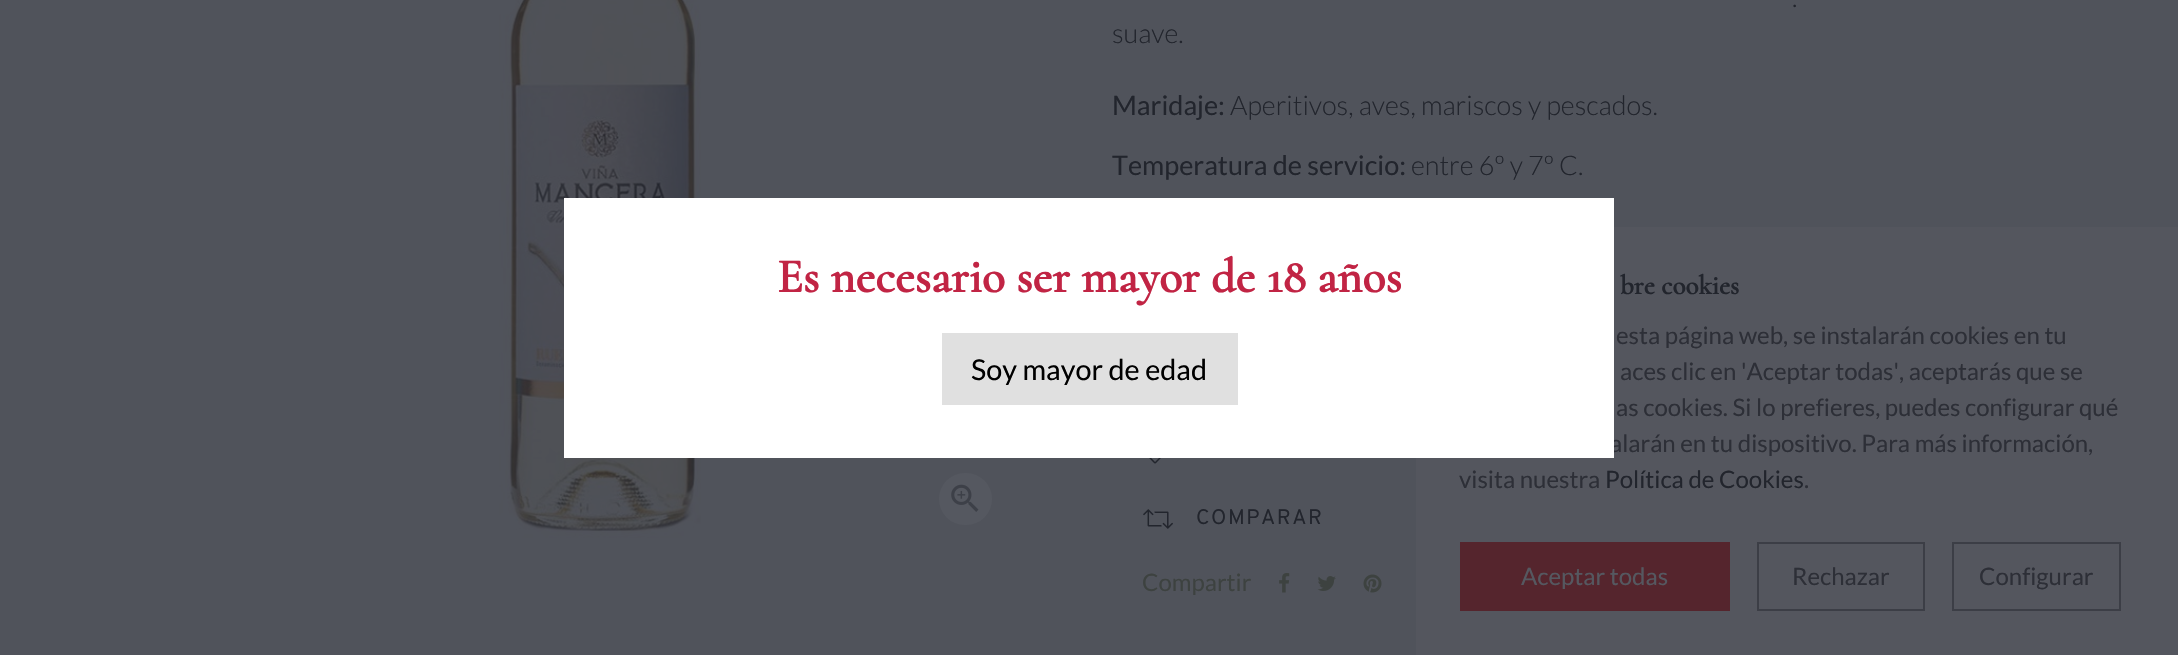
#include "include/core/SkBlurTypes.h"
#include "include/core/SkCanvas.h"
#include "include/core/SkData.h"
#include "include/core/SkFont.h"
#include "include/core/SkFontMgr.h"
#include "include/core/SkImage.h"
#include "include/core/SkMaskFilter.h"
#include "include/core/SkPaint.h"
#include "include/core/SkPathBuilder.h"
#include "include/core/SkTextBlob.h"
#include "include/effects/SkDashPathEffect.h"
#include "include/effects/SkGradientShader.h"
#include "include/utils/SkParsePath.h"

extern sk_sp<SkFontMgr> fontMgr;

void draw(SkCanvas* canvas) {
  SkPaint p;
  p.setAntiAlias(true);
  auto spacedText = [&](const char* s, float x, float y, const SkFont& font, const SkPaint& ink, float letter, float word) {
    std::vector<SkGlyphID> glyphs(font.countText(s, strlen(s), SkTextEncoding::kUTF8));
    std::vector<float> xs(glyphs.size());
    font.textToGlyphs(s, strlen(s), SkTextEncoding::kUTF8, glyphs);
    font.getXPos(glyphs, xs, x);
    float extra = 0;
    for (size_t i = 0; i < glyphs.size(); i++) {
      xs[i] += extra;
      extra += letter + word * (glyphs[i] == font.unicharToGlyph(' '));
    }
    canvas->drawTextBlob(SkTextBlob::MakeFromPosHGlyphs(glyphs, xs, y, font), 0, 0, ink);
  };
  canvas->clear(SkColorSetRGB(80, 83, 91));
  canvas->drawImageRect(SkImages::DeferredFromEncodedData(SkData::MakeFromFileName("images/1.png")), SkRect::MakeLTRB(499, 0, 701, 538), SkSamplingOptions());
  p.setColor(SkColorSetRGB(85, 88, 96));
  canvas->drawRoundRect(SkRect::MakeLTRB(939, 473, 992, 525), 26, 26, p);
  canvas->drawImageRect(SkImages::DeferredFromEncodedData(SkData::MakeFromFileName("images/2.png")), SkRect::MakeLTRB(951, 484, 979, 512), SkSamplingOptions());
  canvas->drawImageRect(SkImages::DeferredFromEncodedData(SkData::MakeFromFileName("images/3.png")), SkRect::MakeLTRB(1149, 458, 1161, 464), SkSamplingOptions());
  canvas->drawImageRect(SkImages::DeferredFromEncodedData(SkData::MakeFromFileName("images/4.png")), SkRect::MakeLTRB(1143, 509, 1173, 529), SkSamplingOptions());
  canvas->drawImageRect(SkImages::DeferredFromEncodedData(SkData::MakeFromFileName("images/5.png")), SkRect::MakeLTRB(1279, 573, 1290, 593), SkSamplingOptions());
  canvas->drawImageRect(SkImages::DeferredFromEncodedData(SkData::MakeFromFileName("images/6.png")), SkRect::MakeLTRB(1317, 576, 1336, 591), SkSamplingOptions());
  canvas->drawImageRect(SkImages::DeferredFromEncodedData(SkData::MakeFromFileName("images/7.png")), SkRect::MakeLTRB(1363, 574, 1382, 593), SkSamplingOptions());
  {
    const SkColor colors[] = {SkColorSetARGB(0, 34, 37, 45), SkColorSetARGB(0, 84, 86, 94), SkColorSetRGB(84, 86, 94), SkColorSetRGB(84, 86, 94)};
    const float stops[] = {0, 0.65f, 0.65f, 1};
    const SkPoint ends[] = {{0, 441}, {2178, 441}};
    p.setShader(SkGradientShader::MakeLinear(ends, colors, stops, 4, SkTileMode::kClamp));
    p.setAlpha(255);
  }
  canvas->drawRect(SkRect::MakeLTRB(1416, 227, 2178, 655), p);
  p.setShader(nullptr);
  p.setColor(SkColorSetRGB(85, 37, 45));
  canvas->drawRect(SkRect::MakeLTRB(1460, 542, 1730, 611), p);
  p.setStyle(SkPaint::kStroke_Style);
  p.setStrokeWidth(2);
  p.setColor(SkColorSetRGB(60, 62, 70));
  canvas->drawRect(SkRect::MakeLTRB(1758, 543, 1924, 610), p);
  canvas->drawRect(SkRect::MakeLTRB(1953, 543, 2120, 610), p);
  SkFont font1(fontMgr->matchFamilyStyle("Lato", SkFontStyle(300, SkFontStyle::kNormal_Width, SkFontStyle::kUpright_Slant)), 27);
  font1.setSubpixel(true);
  p.setStyle(SkPaint::kFill_Style);
  p.setColor(SkColorSetRGB(34, 37, 45));
  canvas->drawString(".", 1792, 7, font1, p);
  canvas->drawString("suave.", 1112, 43, font1, p);
  SkFont font2(fontMgr->matchFamilyStyle("Lato", SkFontStyle::Normal()), 27);
  font2.setSubpixel(true);
  canvas->drawString("Maridaje:", 1112, 115, font2, p);
  canvas->drawString("Aperitivos, aves, mariscos y pescados.", 1230, 115, font1, p);
  canvas->drawString("Temperatura de servicio:", 1112, 175, font2, p);
  canvas->drawString("entre 6º y 7º C.", 1411, 175, font1, p);
  SkFont font3(fontMgr->matchFamilyStyle("Overpass", SkFontStyle::Normal()), 21);
  font3.setSubpixel(true);
  spacedText("COMPARAR", 1196, 524, font3, p, 1.5f, 0);
  SkFont font4(fontMgr->matchFamilyStyle("Lato", SkFontStyle::Normal()), 24);
  font4.setSubpixel(true);
  p.setColor(SkColorSetRGB(61, 66, 64));
  canvas->drawString("Compartir", 1142, 591, font4, p);
  SkFont font5(fontMgr->matchFamilyStyle("Cormorant", SkFontStyle::Bold()), 27);
  font5.setSubpixel(true);
  p.setColor(SkColorSetRGB(34, 37, 45));
  canvas->drawString("bre cookies", 1620, 294, font5, p);
  p.setColor(SkColorSetRGB(45, 47, 55));
  canvas->drawString("esta página web, se instalarán cookies en tu", 1616, 344, font4, p);
  canvas->drawString("aces clic en 'Aceptar todas', aceptarás que se", 1620, 380, font4, p);
  canvas->drawString("as cookies. Si lo prefieres, puedes configurar qué", 1616, 416, font4, p);
  canvas->drawString("alarán en tu dispositivo. Para más información,", 1610, 452, font4, p);
  p.setColor(SK_ColorWHITE);
  canvas->drawRect(SkRect::MakeLTRB(564, 198, 1614, 458), p);
  p.setColor(SkColorSetRGB(224, 224, 224));
  canvas->drawRect(SkRect::MakeLTRB(942, 333, 1238, 405), p);
  SkFont font6(fontMgr->matchFamilyStyle("Lato", SkFontStyle::Normal()), 28.75f);
  font6.setSubpixel(true);
  p.setColor(SK_ColorBLACK);
  canvas->drawString("Soy mayor de edad", 971, 380, font6, p);
  SkFont font7(fontMgr->matchFamilyStyle("Cormorant", SkFontStyle::Bold()), 48);
  font7.setSubpixel(true);
  p.setColor(SkColorSetRGB(193, 36, 68));
  canvas->drawString("Es necesario ser mayor de 18 años", 777, 292, font7, p);
  p.setColor(SkColorSetRGB(45, 47, 55));
  canvas->drawString("visita nuestra", 1459, 488, font4, p);
  p.setColor(SkColorSetRGB(34, 37, 45));
  canvas->drawString("Política de Cookies", 1605, 488, font4, p);
  p.setColor(SkColorSetRGB(45, 47, 55));
  canvas->drawString(".", 1804, 488, font4, p);
  p.setColor(SkColorSetRGB(85, 88, 96));
  canvas->drawString("Aceptar todas", 1521, 585, font4, p);
  p.setColor(SkColorSetRGB(45, 47, 55));
  canvas->drawString("Rechazar", 1792, 585, font4, p);
  canvas->drawString("Configurar", 1979, 585, font4, p);
}
